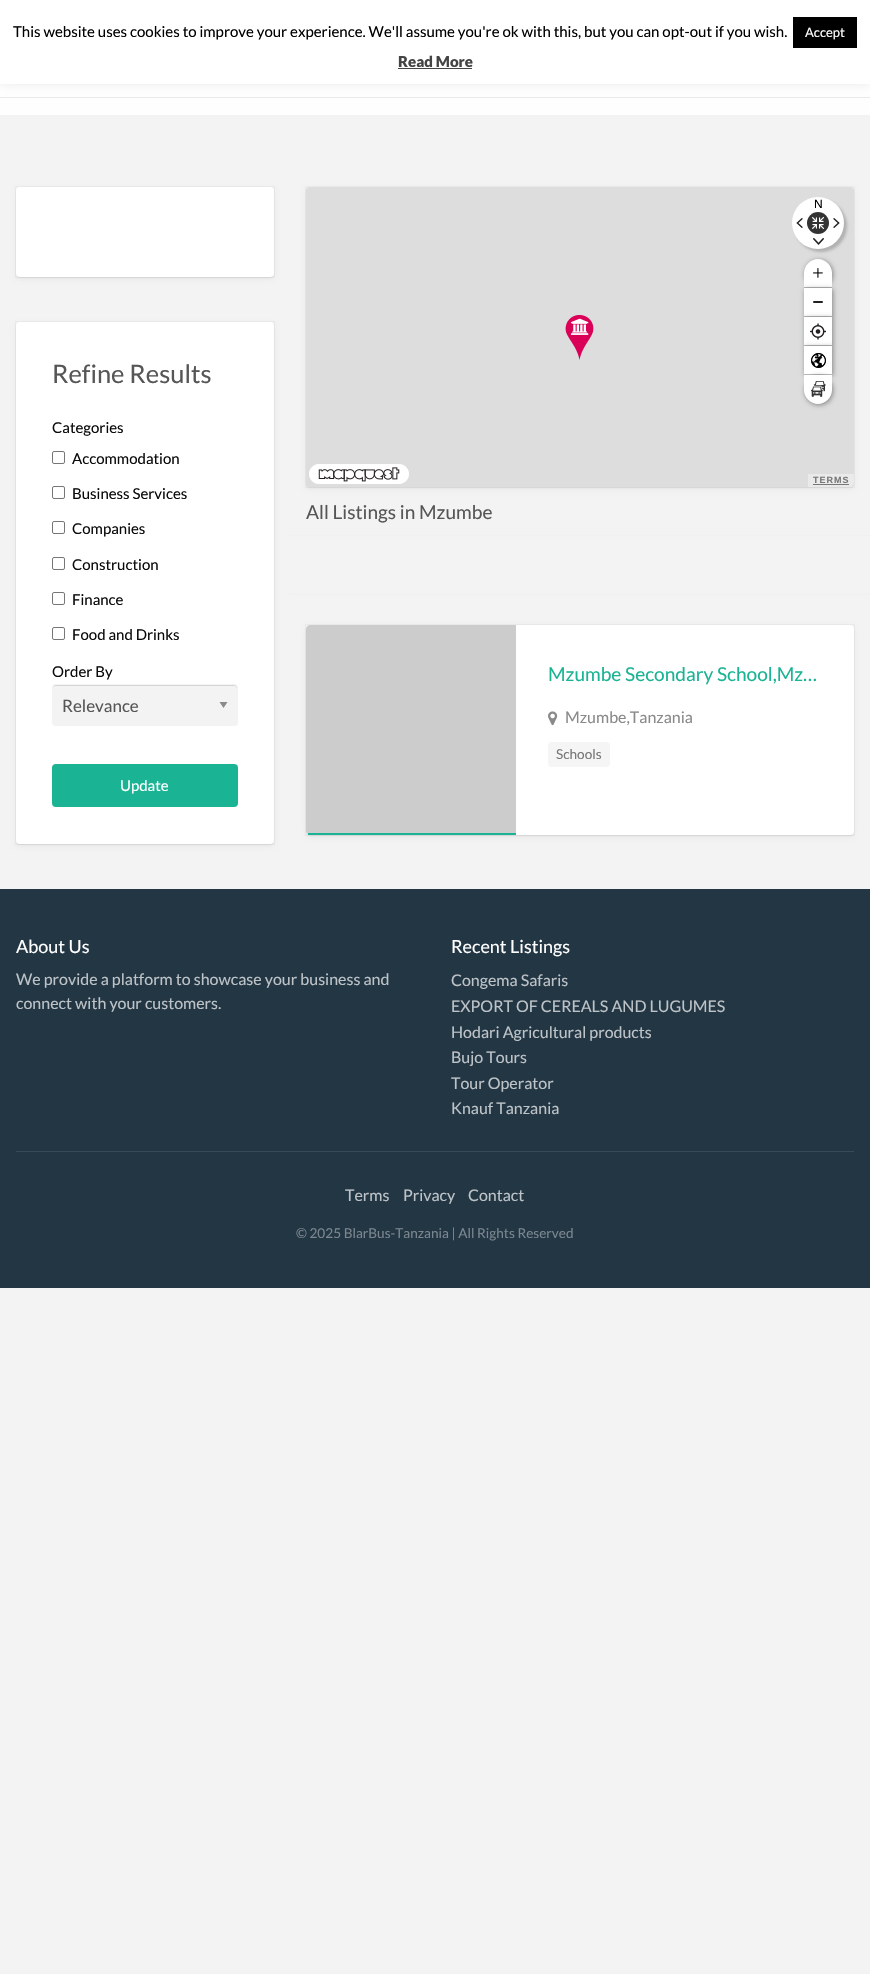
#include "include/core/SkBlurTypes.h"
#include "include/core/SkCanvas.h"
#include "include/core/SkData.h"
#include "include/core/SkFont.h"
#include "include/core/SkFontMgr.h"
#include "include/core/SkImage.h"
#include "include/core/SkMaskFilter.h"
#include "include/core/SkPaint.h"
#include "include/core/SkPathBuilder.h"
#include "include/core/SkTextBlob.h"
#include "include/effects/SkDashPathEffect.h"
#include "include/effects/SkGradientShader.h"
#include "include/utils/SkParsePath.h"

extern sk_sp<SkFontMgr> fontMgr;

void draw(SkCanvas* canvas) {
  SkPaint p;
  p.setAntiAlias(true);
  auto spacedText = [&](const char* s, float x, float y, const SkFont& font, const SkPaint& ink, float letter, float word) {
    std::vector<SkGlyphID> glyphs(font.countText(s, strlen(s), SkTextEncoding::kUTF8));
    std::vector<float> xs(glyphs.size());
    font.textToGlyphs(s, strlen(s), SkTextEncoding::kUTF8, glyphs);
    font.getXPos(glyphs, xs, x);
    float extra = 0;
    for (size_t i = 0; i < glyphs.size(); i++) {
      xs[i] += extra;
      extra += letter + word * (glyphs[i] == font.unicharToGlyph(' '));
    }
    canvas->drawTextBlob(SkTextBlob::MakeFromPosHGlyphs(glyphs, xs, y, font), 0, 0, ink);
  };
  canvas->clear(SkColorSetRGB(243, 243, 244));
  p.setColor(SkColorSetRGB(254, 254, 254));
  canvas->drawRect(SkRect::MakeLTRB(0, 84, 870, 97), p);
  p.setColor(SkColorSetRGB(234, 234, 234));
  canvas->drawRect(SkRect::MakeLTRB(0, 97, 870, 98), p);
  p.setColor(SkColorSetRGB(254, 254, 254));
  canvas->drawRect(SkRect::MakeLTRB(0, 98, 870, 115), p);
  p.setColor(SkColorSetARGB(77, 172, 171, 171));
  p.setMaskFilter(SkMaskFilter::MakeBlur(kNormal_SkBlurStyle, 5));
  canvas->drawRect(SkRect::MakeLTRB(0, -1, 870, 83), p);
  p.setMaskFilter(nullptr);
  p.setColor(SK_ColorWHITE);
  canvas->drawRect(SkRect::MakeLTRB(0, 0, 870, 84), p);
  p.setColor(SK_ColorBLACK);
  canvas->drawRect(SkRect::MakeLTRB(793, 17, 857, 48), p);
  p.setColor(SkColorSetRGB(68, 68, 68));
  canvas->drawRect(SkRect::MakeLTRB(398, 68, 472, 69), p);
  p.setColor(SkColorSetARGB(13, 0, 0, 0));
  p.setMaskFilter(SkMaskFilter::MakeBlur(kNormal_SkBlurStyle, 2.5f));
  canvas->drawRoundRect(SkRect::MakeLTRB(16, 189, 274, 279), 4, 4, p);
  p.setMaskFilter(nullptr);
  p.setMaskFilter(SkMaskFilter::MakeBlur(kNormal_SkBlurStyle, 0.5f));
  canvas->drawRoundRect(SkRect::MakeLTRB(16, 188, 274, 278), 4, 4, p);
  p.setMaskFilter(nullptr);
  p.setStyle(SkPaint::kStroke_Style);
  p.setStrokeWidth(1);
  p.setColor(SkColorSetARGB(8, 0, 0, 0));
  canvas->drawRect(SkRect::MakeLTRB(15.5f, 186.5f, 274.5f, 277.5f), p);
  p.setStyle(SkPaint::kFill_Style);
  p.setColor(SK_ColorWHITE);
  canvas->drawRoundRect(SkRect::MakeLTRB(16, 187, 274, 277), 4, 4, p);
  p.setColor(SkColorSetARGB(13, 0, 0, 0));
  p.setMaskFilter(SkMaskFilter::MakeBlur(kNormal_SkBlurStyle, 2.5f));
  canvas->drawRoundRect(SkRect::MakeLTRB(16, 324, 274, 846), 4, 4, p);
  p.setMaskFilter(nullptr);
  p.setMaskFilter(SkMaskFilter::MakeBlur(kNormal_SkBlurStyle, 0.5f));
  canvas->drawRoundRect(SkRect::MakeLTRB(16, 323, 274, 845), 4, 4, p);
  p.setMaskFilter(nullptr);
  p.setStyle(SkPaint::kStroke_Style);
  p.setColor(SkColorSetARGB(8, 0, 0, 0));
  canvas->drawRect(SkRect::MakeLTRB(15.5f, 321.5f, 274.5f, 844.5f), p);
  p.setStyle(SkPaint::kFill_Style);
  p.setColor(SK_ColorWHITE);
  canvas->drawRoundRect(SkRect::MakeLTRB(16, 322, 274, 844), 4, 4, p);
  p.setStyle(SkPaint::kStroke_Style);
  p.setColor(SkColorSetRGB(118, 118, 118));
  canvas->drawRoundRect(SkRect::MakeLTRB(52.5f, 451.5f, 64.5f, 463.5f), 1.5f, 1.5f, p);
  canvas->drawRoundRect(SkRect::MakeLTRB(52.5f, 486.5f, 64.5f, 498.5f), 1.5f, 1.5f, p);
  canvas->drawRoundRect(SkRect::MakeLTRB(52.5f, 521.5f, 64.5f, 533.5f), 1.5f, 1.5f, p);
  canvas->drawRoundRect(SkRect::MakeLTRB(52.5f, 557.5f, 64.5f, 569.5f), 1.5f, 1.5f, p);
  canvas->drawRoundRect(SkRect::MakeLTRB(52.5f, 592.5f, 64.5f, 604.5f), 1.5f, 1.5f, p);
  canvas->drawRoundRect(SkRect::MakeLTRB(52.5f, 627.5f, 64.5f, 639.5f), 1.5f, 1.5f, p);
  p.setStyle(SkPaint::kFill_Style);
  p.setColor(SkColorSetRGB(243, 243, 244));
  canvas->drawRoundRect(SkRect::MakeLTRB(52, 684, 238, 726), 4, 4, p);
  p.setColor(SkColorSetRGB(138, 138, 138));
  canvas->drawPath(SkPathBuilder().moveTo(219.5f, 702).lineTo(227.5f, 702).lineTo(223.5f, 708).close().detach(), p);
  p.setColor(SkColorSetRGB(213, 213, 214));
  canvas->drawPath(SkPathBuilder().moveTo(56, 686).lineTo(235, 686).lineTo(236, 687).lineTo(237, 689).cubicTo(237, 687, 236, 685, 234, 685).lineTo(55, 685).cubicTo(53, 686, 53, 687, 53, 689).cubicTo(53, 687, 54, 686, 56, 686).close().detach(), p);
  p.setStyle(SkPaint::kStroke_Style);
  p.setColor(SkColorSetRGB(243, 243, 244));
  canvas->drawRoundRect(SkRect::MakeLTRB(52.5f, 684.5f, 237.5f, 725.5f), 3.5f, 3.5f, p);
  p.setStyle(SkPaint::kFill_Style);
  p.setColor(SkColorSetRGB(26, 179, 148));
  canvas->drawRoundRect(SkRect::MakeLTRB(52, 764, 238, 807), 4, 4, p);
  p.setColor(SkColorSetARGB(13, 0, 0, 0));
  p.setMaskFilter(SkMaskFilter::MakeBlur(kNormal_SkBlurStyle, 2.5f));
  canvas->drawRoundRect(SkRect::MakeLTRB(306, 189, 854, 489), 4, 4, p);
  p.setMaskFilter(nullptr);
  p.setMaskFilter(SkMaskFilter::MakeBlur(kNormal_SkBlurStyle, 0.5f));
  canvas->drawRoundRect(SkRect::MakeLTRB(306, 188, 854, 488), 4, 4, p);
  p.setMaskFilter(nullptr);
  p.setStyle(SkPaint::kStroke_Style);
  p.setColor(SkColorSetARGB(8, 0, 0, 0));
  canvas->drawRect(SkRect::MakeLTRB(305.5f, 186.5f, 854.5f, 487.5f), p);
  p.setStyle(SkPaint::kFill_Style);
  p.setColor(SkColorSetRGB(221, 221, 221));
  canvas->drawRoundRect(SkRect::MakeLTRB(306, 187, 854, 487), 4, 4, p);
  canvas->drawImageRect(SkImages::DeferredFromEncodedData(SkData::MakeFromFileName("images/1.png")), SkRect::MakeLTRB(565, 315, 594, 360), SkSamplingOptions());
  p.setColor(SkColorSetARGB(51, 0, 0, 0));
  p.setMaskFilter(SkMaskFilter::MakeBlur(kNormal_SkBlurStyle, 1.5f));
  canvas->drawRoundRect(SkRect::MakeLTRB(795, 200, 847, 252), 26, 26, p);
  p.setMaskFilter(nullptr);
  p.setColor(SK_ColorWHITE);
  canvas->drawCircle(818, 223, 26, p);
  canvas->drawImageRect(SkImages::DeferredFromEncodedData(SkData::MakeFromFileName("images/2.png")), SkRect::MakeLTRB(796, 218, 803, 228), SkSamplingOptions());
  p.setColor(SkColorSetRGB(51, 51, 51));
  canvas->drawCircle(818, 223, 11, p);
  canvas->drawImageRect(SkImages::DeferredFromEncodedData(SkData::MakeFromFileName("images/3.png")), SkRect::MakeLTRB(812, 217, 824, 229), SkSamplingOptions());
  canvas->drawImageRect(SkImages::DeferredFromEncodedData(SkData::MakeFromFileName("images/4.png")), SkRect::MakeLTRB(833, 218, 840, 228), SkSamplingOptions());
  canvas->drawImageRect(SkImages::DeferredFromEncodedData(SkData::MakeFromFileName("images/5.png")), SkRect::MakeLTRB(813, 238, 824, 245), SkSamplingOptions());
  p.setColor(SkColorSetARGB(102, 0, 0, 0));
  p.setMaskFilter(SkMaskFilter::MakeBlur(kNormal_SkBlurStyle, 2.5f));
  canvas->drawRoundRect(SkRect::MakeLTRB(805, 260, 833, 289), 14, 14, p);
  p.setMaskFilter(nullptr);
  p.setColor(SK_ColorWHITE);
  canvas->drawPath(SkPathBuilder().moveTo(818, 259).cubicTo(825.5f, 259, 832, 265.5f, 832, 273).lineTo(832, 288).lineTo(804, 288).lineTo(804, 273).cubicTo(804, 265.5f, 810.5f, 259, 818, 259).close().detach(), p);
  p.setColor(SkColorSetRGB(183, 183, 183));
  canvas->drawRect(SkRect::MakeLTRB(804, 287, 832, 288), p);
  canvas->drawImageRect(SkImages::DeferredFromEncodedData(SkData::MakeFromFileName("images/6.png")), SkRect::MakeLTRB(813, 268, 823, 278), SkSamplingOptions());
  p.setColor(SkColorSetARGB(102, 0, 0, 0));
  p.setMaskFilter(SkMaskFilter::MakeBlur(kNormal_SkBlurStyle, 2.5f));
  canvas->drawRect(SkRect::MakeLTRB(805, 289, 833, 318), p);
  p.setMaskFilter(nullptr);
  p.setColor(SK_ColorWHITE);
  canvas->drawRect(SkRect::MakeLTRB(804, 288, 832, 316), p);
  p.setColor(SkColorSetRGB(183, 183, 183));
  canvas->drawRect(SkRect::MakeLTRB(804, 316, 832, 317), p);
  p.setColor(SkColorSetRGB(35, 31, 32));
  canvas->drawRoundRect(SkRect::MakeLTRB(813, 301, 823, 303), 1, 1, p);
  p.setColor(SkColorSetARGB(102, 0, 0, 0));
  p.setMaskFilter(SkMaskFilter::MakeBlur(kNormal_SkBlurStyle, 2.5f));
  canvas->drawRect(SkRect::MakeLTRB(805, 318, 833, 347), p);
  p.setMaskFilter(nullptr);
  p.setColor(SK_ColorWHITE);
  canvas->drawRect(SkRect::MakeLTRB(804, 317, 832, 345), p);
  p.setColor(SkColorSetRGB(183, 183, 183));
  canvas->drawRect(SkRect::MakeLTRB(804, 345, 832, 346), p);
  canvas->drawImageRect(SkImages::DeferredFromEncodedData(SkData::MakeFromFileName("images/7.png")), SkRect::MakeLTRB(810, 323, 826, 340), SkSamplingOptions());
  p.setColor(SkColorSetARGB(102, 0, 0, 0));
  p.setMaskFilter(SkMaskFilter::MakeBlur(kNormal_SkBlurStyle, 2.5f));
  canvas->drawRect(SkRect::MakeLTRB(805, 347, 833, 376), p);
  p.setMaskFilter(nullptr);
  p.setColor(SK_ColorWHITE);
  canvas->drawRect(SkRect::MakeLTRB(804, 346, 832, 374), p);
  p.setColor(SkColorSetRGB(183, 183, 183));
  canvas->drawRect(SkRect::MakeLTRB(804, 374, 832, 375), p);
  canvas->drawImageRect(SkImages::DeferredFromEncodedData(SkData::MakeFromFileName("images/8.png")), SkRect::MakeLTRB(811, 353, 826, 368), SkSamplingOptions());
  p.setColor(SkColorSetARGB(102, 0, 0, 0));
  p.setMaskFilter(SkMaskFilter::MakeBlur(kNormal_SkBlurStyle, 2.5f));
  canvas->drawRoundRect(SkRect::MakeLTRB(805, 376, 833, 405), 14, 14, p);
  p.setMaskFilter(nullptr);
  p.setColor(SK_ColorWHITE);
  canvas->drawPath(SkPathBuilder().moveTo(804, 375).lineTo(832, 375).lineTo(832, 390).cubicTo(832, 397.5f, 825.5f, 404, 818, 404).cubicTo(810.5f, 404, 804, 397.5f, 804, 390).close().detach(), p);
  canvas->drawImageRect(SkImages::DeferredFromEncodedData(SkData::MakeFromFileName("images/9.png")), SkRect::MakeLTRB(811, 381, 826, 397), SkSamplingOptions());
  canvas->drawImageRect(SkImages::DeferredFromEncodedData(SkData::MakeFromFileName("images/10.png")), SkRect::MakeLTRB(309, 464, 409, 484), SkSamplingOptions());
  p.setColor(SkColorSetRGB(234, 234, 234));
  canvas->drawPath(SkPathBuilder().moveTo(808, 474).lineTo(854, 474).lineTo(854, 483).cubicTo(854, 485, 852, 487, 850, 487).lineTo(808, 487).close().detach(), p);
  p.setColor(SkColorSetRGB(119, 119, 119));
  canvas->drawRect(SkRect::MakeLTRB(813, 484, 849, 485), p);
  p.setColor(SkColorSetRGB(240, 240, 240));
  canvas->drawRect(SkRect::MakeLTRB(290, 535, 870, 536), p);
  canvas->drawRect(SkRect::MakeLTRB(290, 594, 870, 595), p);
  p.setColor(SkColorSetARGB(13, 0, 0, 0));
  p.setMaskFilter(SkMaskFilter::MakeBlur(kNormal_SkBlurStyle, 2.5f));
  canvas->drawRoundRect(SkRect::MakeLTRB(306, 627, 854, 837), 4, 4, p);
  p.setMaskFilter(nullptr);
  p.setMaskFilter(SkMaskFilter::MakeBlur(kNormal_SkBlurStyle, 0.5f));
  canvas->drawRoundRect(SkRect::MakeLTRB(306, 626, 854, 836), 4, 4, p);
  p.setMaskFilter(nullptr);
  p.setStyle(SkPaint::kStroke_Style);
  p.setColor(SkColorSetARGB(8, 0, 0, 0));
  canvas->drawRect(SkRect::MakeLTRB(305.5f, 624.5f, 854.5f, 835.5f), p);
  p.setStyle(SkPaint::kFill_Style);
  p.setColor(SK_ColorWHITE);
  canvas->drawRoundRect(SkRect::MakeLTRB(306, 625, 854, 835), 4, 4, p);
  p.setColor(SkColorSetRGB(204, 204, 204));
  canvas->drawPath(SkPathBuilder().moveTo(310, 625).lineTo(516, 625).lineTo(516, 835).lineTo(310, 835).cubicTo(308, 835, 306, 833, 306, 831).lineTo(306, 629).cubicTo(306, 627, 308, 625, 310, 625).close().detach(), p);
  p.setColor(SkColorSetRGB(26, 179, 148));
  canvas->drawRect(SkRect::MakeLTRB(308, 833, 516, 835), p);
  canvas->drawImageRect(SkImages::DeferredFromEncodedData(SkData::MakeFromFileName("images/11.png")), SkRect::MakeLTRB(548, 711, 558, 726), SkSamplingOptions());
  p.setColor(SkColorSetRGB(245, 245, 245));
  canvas->drawRoundRect(SkRect::MakeLTRB(548, 742, 610, 767), 4, 4, p);
  p.setColor(SkColorSetRGB(35, 54, 68));
  canvas->drawRect(SkRect::MakeLTRB(0, 889, 870, 1288), p);
  p.setColor(SkColorSetRGB(57, 74, 87));
  canvas->drawRect(SkRect::MakeLTRB(16, 1151, 854, 1152), p);
  SkFont font1(fontMgr->matchFamilyStyle("Lato", SkFontStyle::Normal()), 15);
  font1.setSubpixel(true);
  p.setColor(SK_ColorBLACK);
  canvas->drawString("This website uses cookies to improve your experience. We'll assume you're ok with this, but you can opt-out if you wish.", 13, 37, font1, p);
  SkFont font2(fontMgr->matchFamilyStyle("Lato", SkFontStyle::Normal()), 13);
  font2.setSubpixel(true);
  p.setColor(SK_ColorWHITE);
  canvas->drawString("Accept", 805, 37, font2, p);
  SkFont font3(fontMgr->matchFamilyStyle("Lato", SkFontStyle(900, SkFontStyle::kNormal_Width, SkFontStyle::kUpright_Slant)), 15);
  font3.setSubpixel(true);
  p.setColor(SkColorSetRGB(68, 68, 68));
  canvas->drawString("Read More", 398, 67, font3, p);
  SkFont font4(fontMgr->matchFamilyStyle("Lato", SkFontStyle::Normal()), 25.5f);
  font4.setSubpixel(true);
  p.setColor(SkColorSetRGB(86, 86, 86));
  canvas->drawString("Refine Results", 52, 383, font4, p);
  p.setColor(SkColorSetRGB(10, 10, 10));
  canvas->drawString("Categories", 52, 433, font1, p);
  canvas->drawString("Accommodation", 72, 464, font1, p);
  canvas->drawString("Business Services", 72, 499, font1, p);
  canvas->drawString("Companies", 72, 534, font1, p);
  canvas->drawString("Construction", 72, 570, font1, p);
  canvas->drawString("Finance", 72, 605, font1, p);
  canvas->drawString("Food and Drinks", 72, 640, font1, p);
  canvas->drawString("Order By", 52, 677, font1, p);
  SkFont font5(fontMgr->matchFamilyStyle("Lato", SkFontStyle::Normal()), 17);
  font5.setSubpixel(true);
  p.setColor(SkColorSetRGB(86, 86, 86));
  canvas->drawString("Relevance", 62, 712, font5, p);
  p.setColor(SK_ColorWHITE);
  canvas->drawString("Update", 120, 791, font1, p);
  SkFont font6(fontMgr->matchFamilyStyle("Liberation Sans", SkFontStyle::Normal()), 12);
  font6.setSubpixel(true);
  p.setColor(SK_ColorBLACK);
  canvas->drawString("N", 814, 208, font6, p);
  SkFont font7(fontMgr->matchFamilyStyle("Liberation Sans", SkFontStyle::Bold()), 9);
  font7.setSubpixel(true);
  p.setColor(SkColorSetRGB(119, 119, 119));
  spacedText("TERMS", 813, 483, font7, p, 1, 0);
  SkFont font8(fontMgr->matchFamilyStyle("Lato", SkFontStyle::Normal()), 19.1f);
  font8.setSubpixel(true);
  p.setColor(SkColorSetRGB(86, 86, 86));
  canvas->drawString("All Listings in Mzumbe", 306, 519, font8, p);
  p.setColor(SkColorSetRGB(26, 179, 148));
  canvas->drawString("Mzumbe Secondary School,Mz…", 548, 681, font8, p);
  SkFont font9(fontMgr->matchFamilyStyle("Lato", SkFontStyle::Normal()), 16);
  font9.setSubpixel(true);
  p.setColor(SkColorSetRGB(138, 138, 138));
  canvas->drawString("Mzumbe,Tanzania", 565, 723, font9, p);
  SkFont font10(fontMgr->matchFamilyStyle("Lato", SkFontStyle::Normal()), 13.6f);
  font10.setSubpixel(true);
  p.setColor(SkColorSetRGB(119, 119, 119));
  canvas->drawString("Schools", 556, 759, font10, p);
  SkFont font11(fontMgr->matchFamilyStyle("Lato", SkFontStyle::Normal()), 18);
  font11.setSubpixel(true);
  p.setColor(SK_ColorWHITE);
  canvas->drawString("About Us", 16, 953, font11, p);
  p.setColor(SkColorSetRGB(189, 195, 199));
  canvas->drawString("We provide a platform to showcase your business and", 16, 985, font9, p);
  canvas->drawString("connect with your customers.", 16, 1009, font9, p);
  p.setColor(SK_ColorWHITE);
  canvas->drawString("Recent Listings", 451, 953, font11, p);
  p.setColor(SkColorSetRGB(189, 195, 199));
  canvas->drawString("Congema Safaris", 451, 986, font9, p);
  canvas->drawString("EXPORT OF CEREALS AND LUGUMES", 451, 1012, font9, p);
  canvas->drawString("Hodari Agricultural products", 451, 1038, font9, p);
  canvas->drawString("Bujo Tours", 451, 1063, font9, p);
  canvas->drawString("Tour Operator", 451, 1089, font9, p);
  canvas->drawString("Knauf Tanzania", 451, 1114, font9, p);
  canvas->drawString("Terms", 345, 1201, font9, p);
  canvas->drawString("Privacy", 403, 1201, font9, p);
  canvas->drawString("Contact", 468, 1201, font9, p);
  p.setColor(SkColorSetRGB(123, 134, 143));
  canvas->drawString("© 2025 BlarBus-Tanzania | All Rights Reserved", 296, 1238, font10, p);
}
